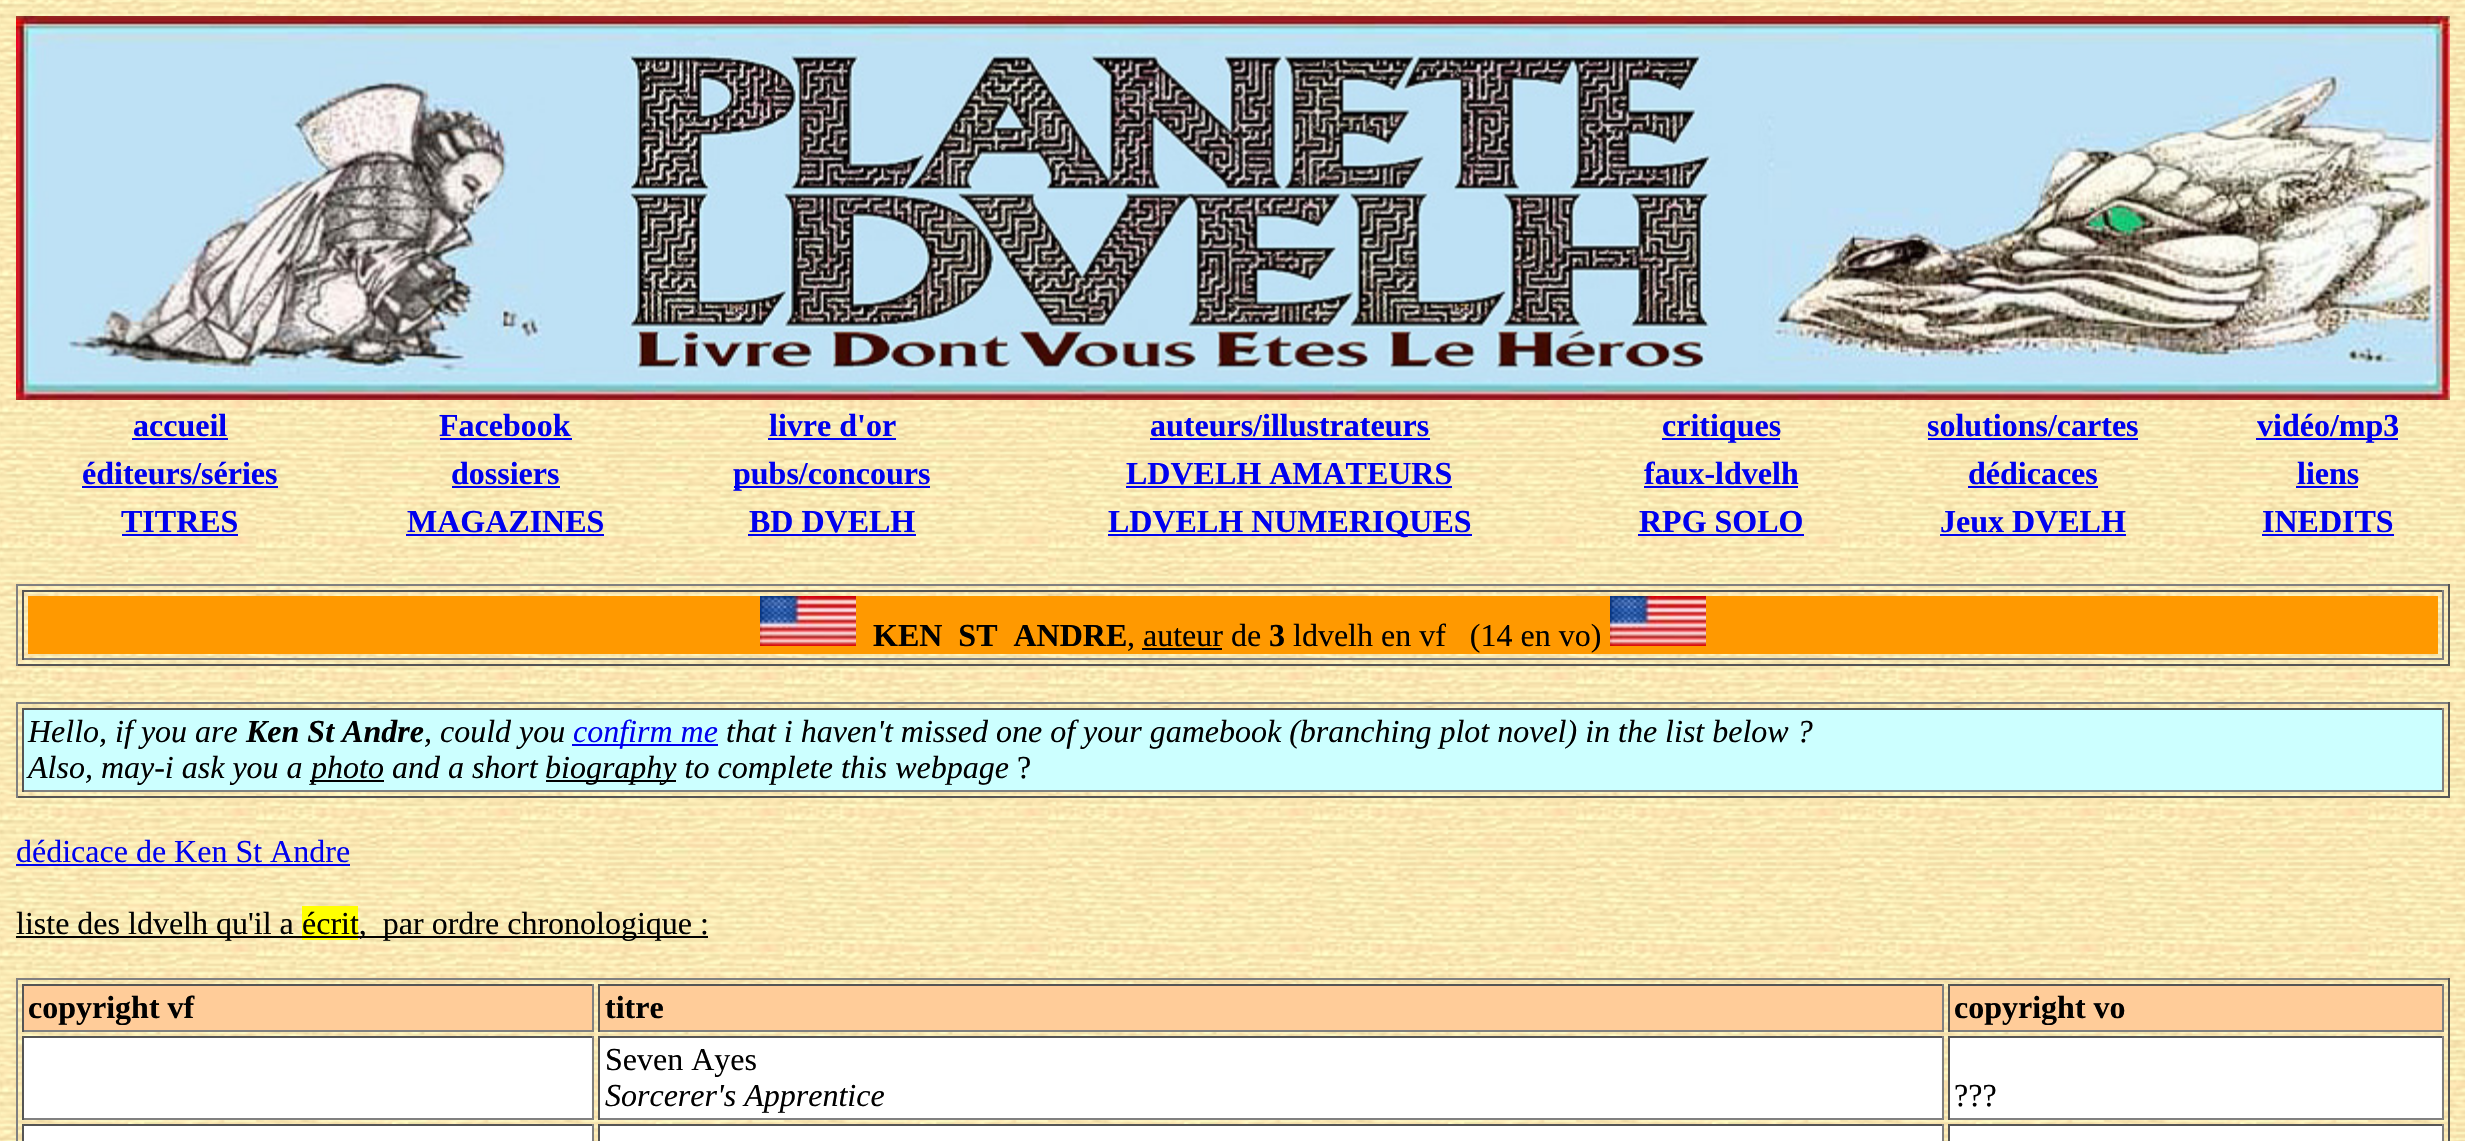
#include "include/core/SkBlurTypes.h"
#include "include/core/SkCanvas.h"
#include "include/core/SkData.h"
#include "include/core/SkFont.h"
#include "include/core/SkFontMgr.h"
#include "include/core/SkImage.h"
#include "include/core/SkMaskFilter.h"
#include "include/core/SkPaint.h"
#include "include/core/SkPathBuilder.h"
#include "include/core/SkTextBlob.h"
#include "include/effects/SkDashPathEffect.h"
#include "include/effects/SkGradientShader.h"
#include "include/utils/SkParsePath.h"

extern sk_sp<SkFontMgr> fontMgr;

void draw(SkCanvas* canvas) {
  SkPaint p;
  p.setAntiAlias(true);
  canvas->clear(SK_ColorWHITE);
  canvas->drawImageRect(SkImages::DeferredFromEncodedData(SkData::MakeFromFileName("images/1.png")), SkRect::MakeLTRB(0, 0, 2465, 1141), SkSamplingOptions());
  canvas->drawImageRect(SkImages::DeferredFromEncodedData(SkData::MakeFromFileName("images/2.png")), SkRect::MakeLTRB(16, 16, 2450, 400), SkSamplingOptions());
  p.setColor(SkColorSetRGB(0, 0, 238));
  canvas->drawRect(SkRect::MakeLTRB(132, 438, 228, 440), p);
  canvas->drawRect(SkRect::MakeLTRB(440, 438, 572, 440), p);
  canvas->drawRect(SkRect::MakeLTRB(768, 438, 896, 440), p);
  canvas->drawRect(SkRect::MakeLTRB(1150, 438, 1430, 440), p);
  canvas->drawRect(SkRect::MakeLTRB(1662, 438, 1780, 440), p);
  canvas->drawRect(SkRect::MakeLTRB(1928, 438, 2138, 440), p);
  canvas->drawRect(SkRect::MakeLTRB(2256, 438, 2398, 440), p);
  canvas->drawRect(SkRect::MakeLTRB(82, 486, 278, 488), p);
  canvas->drawRect(SkRect::MakeLTRB(452, 486, 560, 488), p);
  canvas->drawRect(SkRect::MakeLTRB(734, 486, 930, 488), p);
  canvas->drawRect(SkRect::MakeLTRB(1126, 486, 1452, 488), p);
  canvas->drawRect(SkRect::MakeLTRB(1644, 486, 1798, 488), p);
  canvas->drawRect(SkRect::MakeLTRB(1968, 486, 2098, 488), p);
  canvas->drawRect(SkRect::MakeLTRB(2296, 486, 2358, 488), p);
  canvas->drawRect(SkRect::MakeLTRB(122, 534, 238, 536), p);
  canvas->drawRect(SkRect::MakeLTRB(406, 534, 604, 536), p);
  canvas->drawRect(SkRect::MakeLTRB(748, 534, 916, 536), p);
  canvas->drawRect(SkRect::MakeLTRB(1108, 534, 1472, 536), p);
  canvas->drawRect(SkRect::MakeLTRB(1638, 534, 1804, 536), p);
  canvas->drawRect(SkRect::MakeLTRB(1940, 534, 2126, 536), p);
  canvas->drawRect(SkRect::MakeLTRB(2262, 534, 2394, 536), p);
  p.setColor(SkColorSetRGB(128, 128, 128));
  canvas->drawRect(SkRect::MakeLTRB(16, 584, 2450, 586), p);
  p.setColor(SkColorSetRGB(85, 85, 85));
  canvas->drawRect(SkRect::MakeLTRB(2448, 584, 2450, 666), p);
  canvas->drawRect(SkRect::MakeLTRB(16, 664, 2450, 666), p);
  p.setColor(SkColorSetRGB(128, 128, 128));
  canvas->drawRect(SkRect::MakeLTRB(16, 584, 18, 666), p);
  p.setColor(SkColorSetRGB(85, 85, 85));
  canvas->drawRect(SkRect::MakeLTRB(22, 590, 2444, 592), p);
  p.setColor(SkColorSetRGB(128, 128, 128));
  canvas->drawRect(SkRect::MakeLTRB(2442, 590, 2444, 660), p);
  canvas->drawRect(SkRect::MakeLTRB(22, 658, 2444, 660), p);
  p.setColor(SkColorSetRGB(85, 85, 85));
  canvas->drawRect(SkRect::MakeLTRB(22, 590, 24, 660), p);
  p.setColor(SkColorSetRGB(255, 153, 0));
  canvas->drawRect(SkRect::MakeLTRB(28, 596, 2438, 654), p);
  canvas->drawImageRect(SkImages::DeferredFromEncodedData(SkData::MakeFromFileName("images/3.png")), SkRect::MakeLTRB(760, 596, 856, 646), SkSamplingOptions());
  canvas->drawImageRect(SkImages::DeferredFromEncodedData(SkData::MakeFromFileName("images/3.png")), SkRect::MakeLTRB(1610, 596, 1706, 646), SkSamplingOptions());
  p.setColor(SK_ColorBLACK);
  canvas->drawRect(SkRect::MakeLTRB(1142, 648, 1222, 650), p);
  p.setColor(SkColorSetRGB(128, 128, 128));
  canvas->drawRect(SkRect::MakeLTRB(16, 702, 2450, 704), p);
  p.setColor(SkColorSetRGB(85, 85, 85));
  canvas->drawRect(SkRect::MakeLTRB(2448, 702, 2450, 798), p);
  canvas->drawRect(SkRect::MakeLTRB(16, 796, 2450, 798), p);
  p.setColor(SkColorSetRGB(128, 128, 128));
  canvas->drawRect(SkRect::MakeLTRB(16, 702, 18, 798), p);
  p.setColor(SkColorSetRGB(204, 255, 255));
  canvas->drawRect(SkRect::MakeLTRB(24, 710, 2442, 790), p);
  p.setColor(SkColorSetRGB(85, 85, 85));
  canvas->drawRect(SkRect::MakeLTRB(22, 708, 2444, 710), p);
  p.setColor(SkColorSetRGB(128, 128, 128));
  canvas->drawRect(SkRect::MakeLTRB(2442, 708, 2444, 792), p);
  canvas->drawRect(SkRect::MakeLTRB(22, 790, 2444, 792), p);
  p.setColor(SkColorSetRGB(85, 85, 85));
  canvas->drawRect(SkRect::MakeLTRB(22, 708, 24, 792), p);
  p.setColor(SkColorSetRGB(0, 0, 238));
  canvas->drawRect(SkRect::MakeLTRB(572, 744, 718, 746), p);
  p.setColor(SK_ColorBLACK);
  canvas->drawRect(SkRect::MakeLTRB(310, 780, 384, 782), p);
  canvas->drawRect(SkRect::MakeLTRB(546, 780, 676, 782), p);
  p.setColor(SkColorSetRGB(0, 0, 238));
  canvas->drawRect(SkRect::MakeLTRB(16, 864, 350, 866), p);
  p.setColor(SK_ColorBLACK);
  canvas->drawRect(SkRect::MakeLTRB(16, 936, 302, 938), p);
  p.setColor(SkColorSetRGB(255, 255, 0));
  canvas->drawRect(SkRect::MakeLTRB(302, 906, 358, 940), p);
  p.setColor(SK_ColorBLACK);
  canvas->drawRect(SkRect::MakeLTRB(302, 936, 708, 938), p);
  p.setColor(SkColorSetRGB(128, 128, 128));
  canvas->drawRect(SkRect::MakeLTRB(16, 978, 2450, 980), p);
  p.setColor(SkColorSetRGB(85, 85, 85));
  canvas->drawRect(SkRect::MakeLTRB(2448, 978, 2450, 1141), p);
  p.setColor(SkColorSetRGB(128, 128, 128));
  canvas->drawRect(SkRect::MakeLTRB(16, 978, 18, 1141), p);
  p.setColor(SkColorSetRGB(255, 204, 153));
  canvas->drawRect(SkRect::MakeLTRB(24, 986, 592, 1030), p);
  p.setColor(SkColorSetRGB(85, 85, 85));
  canvas->drawRect(SkRect::MakeLTRB(22, 984, 594, 986), p);
  p.setColor(SkColorSetRGB(128, 128, 128));
  canvas->drawRect(SkRect::MakeLTRB(592, 984, 594, 1032), p);
  canvas->drawRect(SkRect::MakeLTRB(22, 1030, 594, 1032), p);
  p.setColor(SkColorSetRGB(85, 85, 85));
  canvas->drawRect(SkRect::MakeLTRB(22, 984, 24, 1032), p);
  p.setColor(SkColorSetRGB(255, 204, 153));
  canvas->drawRect(SkRect::MakeLTRB(600, 986, 1942, 1030), p);
  p.setColor(SkColorSetRGB(85, 85, 85));
  canvas->drawRect(SkRect::MakeLTRB(598, 984, 1944, 986), p);
  p.setColor(SkColorSetRGB(128, 128, 128));
  canvas->drawRect(SkRect::MakeLTRB(1942, 984, 1944, 1032), p);
  canvas->drawRect(SkRect::MakeLTRB(598, 1030, 1944, 1032), p);
  p.setColor(SkColorSetRGB(85, 85, 85));
  canvas->drawRect(SkRect::MakeLTRB(598, 984, 600, 1032), p);
  p.setColor(SkColorSetRGB(255, 204, 153));
  canvas->drawRect(SkRect::MakeLTRB(1950, 986, 2442, 1030), p);
  p.setColor(SkColorSetRGB(85, 85, 85));
  canvas->drawRect(SkRect::MakeLTRB(1948, 984, 2444, 986), p);
  p.setColor(SkColorSetRGB(128, 128, 128));
  canvas->drawRect(SkRect::MakeLTRB(2442, 984, 2444, 1032), p);
  canvas->drawRect(SkRect::MakeLTRB(1948, 1030, 2444, 1032), p);
  p.setColor(SkColorSetRGB(85, 85, 85));
  canvas->drawRect(SkRect::MakeLTRB(1948, 984, 1950, 1032), p);
  p.setColor(SK_ColorWHITE);
  canvas->drawRect(SkRect::MakeLTRB(24, 1038, 592, 1118), p);
  p.setColor(SkColorSetRGB(85, 85, 85));
  canvas->drawRect(SkRect::MakeLTRB(22, 1036, 594, 1038), p);
  p.setColor(SkColorSetRGB(128, 128, 128));
  canvas->drawRect(SkRect::MakeLTRB(592, 1036, 594, 1120), p);
  canvas->drawRect(SkRect::MakeLTRB(22, 1118, 594, 1120), p);
  p.setColor(SkColorSetRGB(85, 85, 85));
  canvas->drawRect(SkRect::MakeLTRB(22, 1036, 24, 1120), p);
  p.setColor(SK_ColorWHITE);
  canvas->drawRect(SkRect::MakeLTRB(600, 1038, 1942, 1118), p);
  p.setColor(SkColorSetRGB(85, 85, 85));
  canvas->drawRect(SkRect::MakeLTRB(598, 1036, 1944, 1038), p);
  p.setColor(SkColorSetRGB(128, 128, 128));
  canvas->drawRect(SkRect::MakeLTRB(1942, 1036, 1944, 1120), p);
  canvas->drawRect(SkRect::MakeLTRB(598, 1118, 1944, 1120), p);
  p.setColor(SkColorSetRGB(85, 85, 85));
  canvas->drawRect(SkRect::MakeLTRB(598, 1036, 600, 1120), p);
  p.setColor(SK_ColorWHITE);
  canvas->drawRect(SkRect::MakeLTRB(1950, 1038, 2442, 1118), p);
  p.setColor(SkColorSetRGB(85, 85, 85));
  canvas->drawRect(SkRect::MakeLTRB(1948, 1036, 2444, 1038), p);
  p.setColor(SkColorSetRGB(128, 128, 128));
  canvas->drawRect(SkRect::MakeLTRB(2442, 1036, 2444, 1120), p);
  canvas->drawRect(SkRect::MakeLTRB(1948, 1118, 2444, 1120), p);
  p.setColor(SkColorSetRGB(85, 85, 85));
  canvas->drawRect(SkRect::MakeLTRB(1948, 1036, 1950, 1120), p);
  p.setColor(SK_ColorWHITE);
  canvas->drawRect(SkRect::MakeLTRB(24, 1126, 592, 1141), p);
  p.setColor(SkColorSetRGB(85, 85, 85));
  canvas->drawRect(SkRect::MakeLTRB(22, 1124, 594, 1126), p);
  p.setColor(SkColorSetRGB(128, 128, 128));
  canvas->drawRect(SkRect::MakeLTRB(592, 1124, 594, 1141), p);
  p.setColor(SkColorSetRGB(85, 85, 85));
  canvas->drawRect(SkRect::MakeLTRB(22, 1124, 24, 1141), p);
  p.setColor(SK_ColorWHITE);
  canvas->drawRect(SkRect::MakeLTRB(600, 1126, 1942, 1141), p);
  p.setColor(SkColorSetRGB(85, 85, 85));
  canvas->drawRect(SkRect::MakeLTRB(598, 1124, 1944, 1126), p);
  p.setColor(SkColorSetRGB(128, 128, 128));
  canvas->drawRect(SkRect::MakeLTRB(1942, 1124, 1944, 1141), p);
  p.setColor(SkColorSetRGB(85, 85, 85));
  canvas->drawRect(SkRect::MakeLTRB(598, 1124, 600, 1141), p);
  p.setColor(SK_ColorWHITE);
  canvas->drawRect(SkRect::MakeLTRB(1950, 1126, 2442, 1141), p);
  p.setColor(SkColorSetRGB(85, 85, 85));
  canvas->drawRect(SkRect::MakeLTRB(1948, 1124, 2444, 1126), p);
  p.setColor(SkColorSetRGB(128, 128, 128));
  canvas->drawRect(SkRect::MakeLTRB(2442, 1124, 2444, 1141), p);
  p.setColor(SkColorSetRGB(85, 85, 85));
  canvas->drawRect(SkRect::MakeLTRB(1948, 1124, 1950, 1141), p);
  SkFont font1(fontMgr->matchFamilyStyle("Liberation Serif", SkFontStyle::Bold()), 32);
  font1.setSubpixel(true);
  p.setColor(SkColorSetRGB(0, 0, 238));
  canvas->drawString("accueil", 133, 436, font1, p);
  canvas->drawString("Facebook", 439, 436, font1, p);
  canvas->drawString("livre d'or", 769, 436, font1, p);
  canvas->drawString("auteurs/illustrateurs", 1150, 436, font1, p);
  canvas->drawString("critiques", 1662, 436, font1, p);
  canvas->drawString("solutions/cartes", 1927, 436, font1, p);
  canvas->drawString("vidéo/mp3", 2257, 436, font1, p);
  canvas->drawString("éditeurs/séries", 82, 484, font1, p);
  canvas->drawString("dossiers", 451, 484, font1, p);
  canvas->drawString("pubs/concours", 733, 484, font1, p);
  canvas->drawString("LDVELH AMATEURS", 1126, 484, font1, p);
  canvas->drawString("faux-ldvelh", 1644, 484, font1, p);
  canvas->drawString("dédicaces", 1968, 484, font1, p);
  canvas->drawString("liens", 2297, 484, font1, p);
  canvas->drawString("TITRES", 121, 532, font1, p);
  canvas->drawString("MAGAZINES", 407, 532, font1, p);
  canvas->drawString("BD DVELH", 749, 532, font1, p);
  canvas->drawString("LDVELH NUMERIQUES", 1108, 532, font1, p);
  canvas->drawString("RPG SOLO", 1639, 532, font1, p);
  canvas->drawString("Jeux DVELH", 1940, 532, font1, p);
  canvas->drawString("INEDITS", 2262, 532, font1, p);
  p.setColor(SK_ColorBLACK);
  canvas->drawString("KEN  ST  ANDRE", 873, 646, font1, p);
  SkFont font2(fontMgr->matchFamilyStyle("Liberation Serif", SkFontStyle::Normal()), 32);
  font2.setSubpixel(true);
  canvas->drawString(", auteur de", 1127, 646, font2, p);
  canvas->drawString("3", 1269, 646, font1, p);
  canvas->drawString("ldvelh en vf   (14 en vo)", 1293, 646, font2, p);
  SkFont font3(fontMgr->matchFamilyStyle("Liberation Serif", SkFontStyle::Italic()), 32);
  font3.setSubpixel(true);
  canvas->drawString("Hello, if you are", 28, 742, font3, p);
  SkFont font4(fontMgr->matchFamilyStyle("Liberation Serif", SkFontStyle::BoldItalic()), 32);
  font4.setSubpixel(true);
  canvas->drawString("Ken St Andre", 246, 742, font4, p);
  canvas->drawString(", could you", 424, 742, font3, p);
  p.setColor(SkColorSetRGB(0, 0, 238));
  canvas->drawString("confirm me", 573, 742, font3, p);
  p.setColor(SK_ColorBLACK);
  canvas->drawString("that i haven't missed one of your gamebook (branching plot novel) in the list below ?", 726, 742, font3, p);
  canvas->drawString("Also, may-i ask you a", 28, 778, font3, p);
  canvas->drawString("photo and a short", 311, 778, font3, p);
  canvas->drawString("biography to complete this webpage", 545, 778, font3, p);
  canvas->drawString("?", 1017, 778, font2, p);
  p.setColor(SkColorSetRGB(0, 0, 238));
  canvas->drawString("dédicace de Ken St Andre", 16, 862, font2, p);
  p.setColor(SK_ColorBLACK);
  canvas->drawString("liste des ldvelh qu'il a", 16, 934, font2, p);
  canvas->drawString("écrit,  par ordre chronologique :", 302, 934, font2, p);
  canvas->drawString("copyright vf", 28, 1018, font1, p);
  canvas->drawString("titre", 605, 1018, font1, p);
  canvas->drawString("copyright vo", 1954, 1018, font1, p);
  canvas->drawString("Seven Ayes", 605, 1070, font2, p);
  canvas->drawString("Sorcerer's Apprentice", 605, 1106, font3, p);
  canvas->drawString("?\077?", 1954, 1106, font2, p);
}
